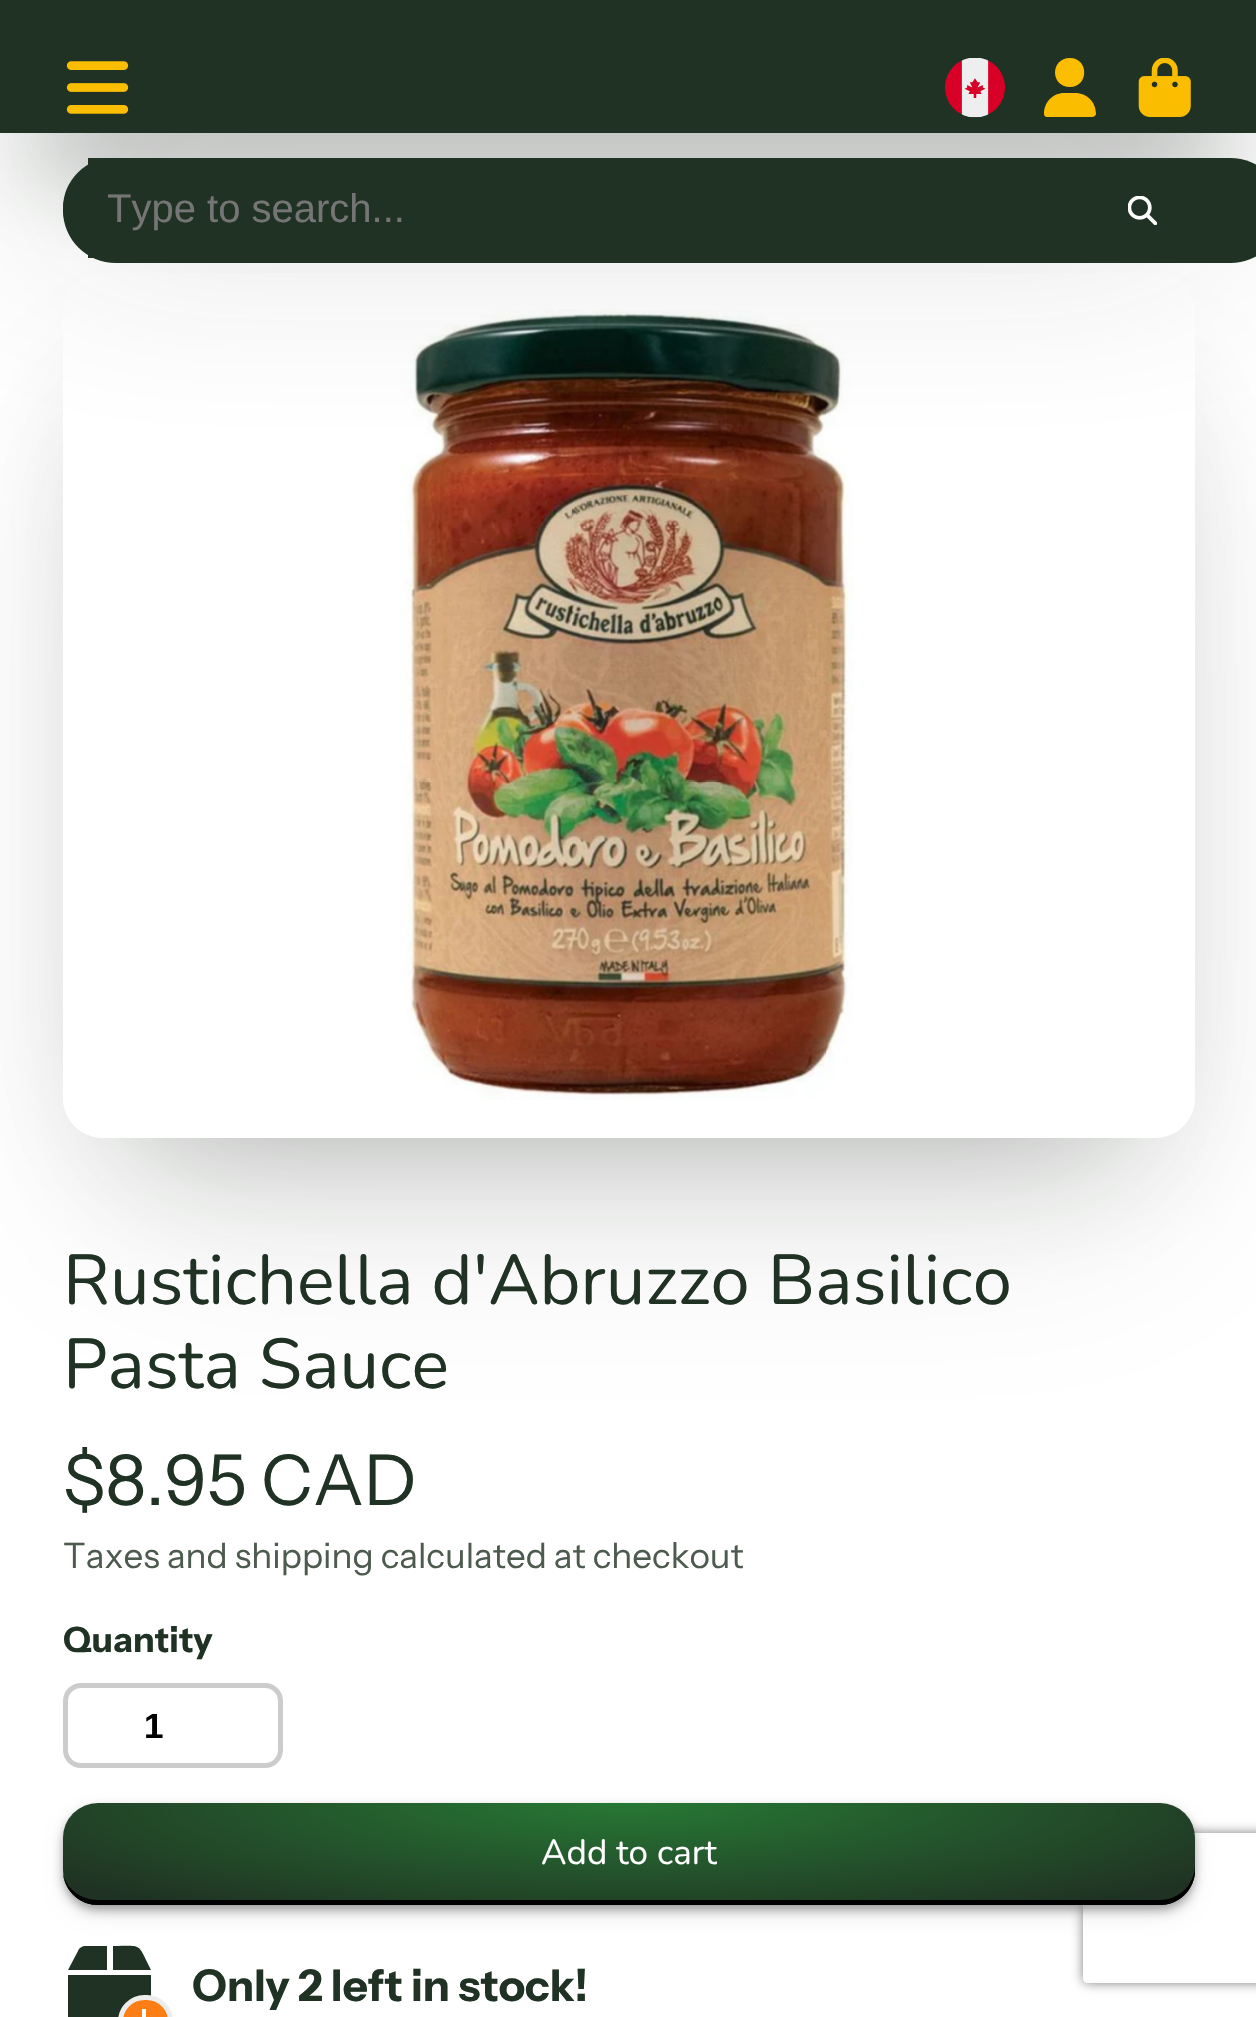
#include "include/core/SkBlurTypes.h"
#include "include/core/SkCanvas.h"
#include "include/core/SkData.h"
#include "include/core/SkFont.h"
#include "include/core/SkFontMgr.h"
#include "include/core/SkImage.h"
#include "include/core/SkMaskFilter.h"
#include "include/core/SkPaint.h"
#include "include/core/SkPathBuilder.h"
#include "include/core/SkTextBlob.h"
#include "include/effects/SkDashPathEffect.h"
#include "include/effects/SkGradientShader.h"
#include "include/utils/SkParsePath.h"

extern sk_sp<SkFontMgr> fontMgr;

void draw(SkCanvas* canvas) {
  SkPaint p;
  p.setAntiAlias(true);
  canvas->clear(SK_ColorWHITE);
  canvas->save();
  canvas->clipPath(SkPathBuilder(SkPathFillType::kEvenOdd).moveTo(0, 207).lineTo(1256, 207).lineTo(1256, 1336).lineTo(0, 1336).close().moveTo(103, 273).lineTo(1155, 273).cubicTo(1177, 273, 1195, 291, 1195, 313).lineTo(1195, 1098).cubicTo(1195, 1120, 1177, 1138, 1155, 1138).lineTo(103, 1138).cubicTo(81, 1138, 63, 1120, 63, 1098).lineTo(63, 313).cubicTo(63, 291, 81, 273, 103, 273).close().detach(), true);
  p.setColor(SkColorSetARGB(77, 22, 34, 24));
  p.setMaskFilter(SkMaskFilter::MakeBlur(kNormal_SkBlurStyle, 65.5f));
  canvas->drawRect(SkRect::MakeLTRB(128, 405, 1130, 1138), p);
  p.setMaskFilter(nullptr);
  canvas->restore();
  canvas->save();
  canvas->clipPath(SkPathBuilder(SkPathFillType::kEvenOdd).moveTo(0, 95).lineTo(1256, 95).lineTo(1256, 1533).lineTo(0, 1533).close().moveTo(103, 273).lineTo(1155, 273).cubicTo(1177, 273, 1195, 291, 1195, 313).lineTo(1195, 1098).cubicTo(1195, 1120, 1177, 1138, 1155, 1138).lineTo(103, 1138).cubicTo(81, 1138, 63, 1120, 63, 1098).lineTo(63, 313).cubicTo(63, 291, 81, 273, 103, 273).close().detach(), true);
  p.setColor(SkColorSetARGB(26, 22, 34, 24));
  p.setMaskFilter(SkMaskFilter::MakeBlur(kNormal_SkBlurStyle, 109.5f));
  canvas->drawRect(SkRect::MakeLTRB(108, 425, 1153, 1203), p);
  p.setMaskFilter(nullptr);
  canvas->restore();
  canvas->save();
  canvas->clipPath(SkPathBuilder().moveTo(103, 273).lineTo(1155, 273).cubicTo(1177, 273, 1195, 291, 1195, 313).lineTo(1195, 1098).cubicTo(1195, 1120, 1177, 1138, 1155, 1138).lineTo(103, 1138).cubicTo(81, 1138, 63, 1120, 63, 1098).lineTo(63, 313).cubicTo(63, 291, 81, 273, 103, 273).close().detach(), true);
  p.setColor(SK_ColorWHITE);
  canvas->drawPath(SkPathBuilder().moveTo(103, 273).lineTo(1155, 273).cubicTo(1177, 273, 1195, 291, 1195, 313).lineTo(1195, 1135).lineTo(63, 1135).lineTo(63, 313).cubicTo(63, 291, 81, 273, 103, 273).close().detach(), p);
  canvas->restore();
  p.setColor(SkColorSetARGB(102, 22, 34, 24));
  p.setMaskFilter(SkMaskFilter::MakeBlur(kNormal_SkBlurStyle, 48));
  canvas->drawRect(SkRect::MakeLTRB(35, 100, 1223, 163), p);
  p.setMaskFilter(nullptr);
  canvas->drawImageRect(SkImages::DeferredFromEncodedData(SkData::MakeFromFileName("images/5.png")), SkRect::MakeLTRB(400, 309, 854, 1100), SkSamplingOptions());
  p.setColor(SkColorSetARGB(77, 22, 34, 24));
  p.setMaskFilter(SkMaskFilter::MakeBlur(kNormal_SkBlurStyle, 109.5f));
  canvas->drawRect(SkRect::MakeLTRB(35, 145, 1223, 208), p);
  p.setMaskFilter(nullptr);
  p.setColor(SkColorSetRGB(32, 50, 35));
  canvas->drawRect(SkRect::MakeLTRB(0, 0, 1256, 133), p);
  canvas->drawImageRect(SkImages::DeferredFromEncodedData(SkData::MakeFromFileName("images/1.png")), SkRect::MakeLTRB(66, 61, 129, 114), SkSamplingOptions());
  canvas->drawImageRect(SkImages::DeferredFromEncodedData(SkData::MakeFromFileName("images/2.png")), SkRect::MakeLTRB(945, 58, 1005, 118), SkSamplingOptions());
  p.setColor(SkColorSetRGB(251, 189, 0));
  canvas->drawPath(SkPathBuilder().moveTo(1070, 87).cubicTo(1089, 87, 1089, 58, 1070, 58).cubicTo(1050, 58, 1050, 87, 1070, 87).close().moveTo(1064, 93).cubicTo(1053, 93, 1044, 102, 1044, 114).cubicTo(1044, 115, 1045, 117, 1047, 117).lineTo(1092, 117).cubicTo(1094, 117, 1096, 115, 1096, 114).cubicTo(1096, 102, 1087, 93, 1075, 93).close().detach(), p);
  canvas->drawImageRect(SkImages::DeferredFromEncodedData(SkData::MakeFromFileName("images/3.png")), SkRect::MakeLTRB(1138, 58, 1191, 117), SkSamplingOptions());
  p.setColor(SkColorSetRGB(32, 50, 35));
  canvas->drawRoundRect(SkRect::MakeLTRB(63, 158, 1195, 258), 50, 50, p);
  canvas->drawRect(SkRect::MakeLTRB(88, 158, 113, 258), p);
  canvas->drawRoundRect(SkRect::MakeLTRB(63, 158, 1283, 263), 52.5f, 52.5f, p);
  canvas->drawImageRect(SkImages::DeferredFromEncodedData(SkData::MakeFromFileName("images/4.png")), SkRect::MakeLTRB(1128, 196, 1157, 225), SkSamplingOptions());
  p.setStyle(SkPaint::kStroke_Style);
  p.setStrokeWidth(5);
  p.setColor(SkColorSetRGB(204, 204, 204));
  canvas->drawRoundRect(SkRect::MakeLTRB(65.5f, 1685.5f, 280.5f, 1765.5f), 15.5f, 15.5f, p);
  p.setStyle(SkPaint::kFill_Style);
  p.setColor(SkColorSetARGB(38, 0, 0, 0));
  p.setMaskFilter(SkMaskFilter::MakeBlur(kNormal_SkBlurStyle, 10.5f));
  canvas->drawRoundRect(SkRect::MakeLTRB(68, 1818, 1190, 1910), 30, 30, p);
  p.setMaskFilter(nullptr);
  p.setColor(SkColorSetARGB(77, 0, 0, 0));
  p.setMaskFilter(SkMaskFilter::MakeBlur(kNormal_SkBlurStyle, 5));
  canvas->drawRoundRect(SkRect::MakeLTRB(63, 1808, 1195, 1910), 35, 35, p);
  p.setMaskFilter(nullptr);
  canvas->save();
  canvas->clipPath(SkPathBuilder(SkPathFillType::kEvenOdd).moveTo(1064, 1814).lineTo(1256, 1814).lineTo(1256, 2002).lineTo(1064, 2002).close().moveTo(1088, 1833).lineTo(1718, 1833).cubicTo(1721, 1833, 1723, 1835, 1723, 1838).lineTo(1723, 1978).cubicTo(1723, 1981, 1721, 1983, 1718, 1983).lineTo(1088, 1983).cubicTo(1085, 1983, 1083, 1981, 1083, 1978).lineTo(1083, 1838).cubicTo(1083, 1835, 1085, 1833, 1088, 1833).close().detach(), true);
  p.setColor(SkColorSetRGB(128, 128, 128));
  p.setMaskFilter(SkMaskFilter::MakeBlur(kNormal_SkBlurStyle, 6));
  canvas->drawRoundRect(SkRect::MakeLTRB(1083, 1833, 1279, 1983), 5, 5, p);
  p.setMaskFilter(nullptr);
  canvas->restore();
  p.setColor(SK_ColorBLACK);
  canvas->drawPath(SkPathBuilder().moveTo(63, 1874).cubicTo(65, 1891, 80, 1905, 98, 1905).lineTo(1160, 1905).cubicTo(1179, 1905, 1195, 1889, 1195, 1870).lineTo(1195, 1865).cubicTo(1195, 1884, 1179, 1900, 1160, 1900).lineTo(98, 1900).cubicTo(81, 1900, 67, 1889, 63, 1874).close().detach(), p);
  canvas->save();
  canvas->clipPath(SkPathBuilder().moveTo(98, 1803).lineTo(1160, 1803).cubicTo(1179.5f, 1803, 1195, 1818.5f, 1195, 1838).lineTo(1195, 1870).cubicTo(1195, 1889.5f, 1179.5f, 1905, 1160, 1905).lineTo(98, 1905).cubicTo(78.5f, 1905, 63, 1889.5f, 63, 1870).lineTo(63, 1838).cubicTo(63, 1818.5f, 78.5f, 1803, 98, 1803).close().detach(), true);
  p.setColor(SkColorSetARGB(38, 0, 0, 0));
  p.setMaskFilter(SkMaskFilter::MakeBlur(kNormal_SkBlurStyle, 10.5f));
  canvas->drawRoundRect(SkRect::MakeLTRB(68, 1818, 1190, 1910), 30, 30, p);
  p.setMaskFilter(nullptr);
  p.setColor(SkColorSetARGB(77, 0, 0, 0));
  p.setMaskFilter(SkMaskFilter::MakeBlur(kNormal_SkBlurStyle, 5));
  canvas->drawRoundRect(SkRect::MakeLTRB(63, 1808, 1195, 1910), 35, 35, p);
  p.setMaskFilter(nullptr);
  canvas->restore();
  {
    const SkColor colors[] = {SkColorSetRGB(39, 120, 52), SkColorSetRGB(32, 50, 35)};
    const float stops[] = {0, 0.9f};
    SkMatrix m = SkMatrix::Translate(629, 1803).preScale(801, 145);
    p.setShader(SkGradientShader::MakeRadial({0, 0}, 1, colors, stops, 2, SkTileMode::kClamp, 0, &m));
    p.setAlpha(255);
  }
  canvas->drawRoundRect(SkRect::MakeLTRB(63, 1803, 1195, 1905), 35, 35, p);
  p.setShader(nullptr);
  p.setColor(SK_ColorBLACK);
  canvas->drawPath(SkPathBuilder().moveTo(63, 1874).lineTo(64, 1877).cubicTo(67, 1893, 81, 1905, 98, 1905).lineTo(1160, 1905).cubicTo(1179, 1905, 1195, 1889, 1195, 1870).lineTo(1195, 1865).cubicTo(1195, 1884, 1179, 1900, 1160, 1900).lineTo(98, 1900).cubicTo(81, 1900, 67, 1889, 63, 1874).close().detach(), p);
  p.setColor(SkColorSetRGB(32, 50, 35));
  canvas->drawPath(SkPathBuilder().moveTo(78, 1951).lineTo(68, 1970).lineTo(107, 1970).lineTo(107, 1946).lineTo(86, 1946).cubicTo(82, 1946, 79, 1948, 78, 1951).close().moveTo(113, 1970).lineTo(151, 1970).cubicTo(137, 1942, 143, 1946, 113, 1946).close().moveTo(151, 1975).lineTo(68, 1975).lineTo(68, 2017).cubicTo(68, 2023, 74, 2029, 80, 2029).lineTo(139, 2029).cubicTo(146, 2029, 151, 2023, 151, 2017).close().detach(), p);
  p.setColor(SkColorSetRGB(253, 126, 20));
  canvas->drawRoundRect(SkRect::MakeLTRB(120.5f, 1997.5f, 170.5f, 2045.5f), 24, 24, p);
  p.setStyle(SkPaint::kStroke_Style);
  p.setColor(SkColorSetRGB(237, 237, 237));
  canvas->drawRoundRect(SkRect::MakeLTRB(120.5f, 1997.5f, 170.5f, 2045.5f), 24, 24, p);
  p.setStyle(SkPaint::kFill_Style);
  p.setColor(SK_ColorWHITE);
  canvas->drawRect(SkRect::MakeLTRB(142, 2009, 146, 2017), p);
  canvas->save();
  canvas->clipRect(SkRect::MakeLTRB(108, 188, 1238, 233));
  SkFont font1(fontMgr->matchFamilyStyle("Liberation Sans", SkFontStyle::Normal()), 40);
  font1.setSubpixel(true);
  p.setColor(SkColorSetRGB(117, 117, 117));
  canvas->drawString("Type to search...", 107, 222, font1, p);
  canvas->restore();
  SkFont font2(fontMgr->matchFamilyStyle("Nunito", SkFontStyle::Normal()), 70.4f);
  font2.setSubpixel(true);
  p.setColor(SkColorSetRGB(32, 50, 35));
  canvas->drawString("Rustichella d'Abruzzo Basilico", 63, 1304, font2, p);
  canvas->drawString("Pasta Sauce", 63, 1388, font2, p);
  SkFont font3(fontMgr->matchFamilyStyle("Instrument Sans", SkFontStyle::Normal()), 70);
  font3.setSubpixel(true);
  canvas->drawString("$8.95 CAD", 63, 1505, font3, p);
  SkFont font4(fontMgr->matchFamilyStyle("Instrument Sans", SkFontStyle::Normal()), 35);
  font4.setSubpixel(true);
  p.setColor(SkColorSetRGB(77, 91, 79));
  canvas->drawString("Taxes and shipping calculated at checkout", 63, 1568, font4, p);
  SkFont font5(fontMgr->matchFamilyStyle("Instrument Sans", SkFontStyle::Bold()), 35);
  font5.setSubpixel(true);
  p.setColor(SkColorSetRGB(32, 50, 35));
  canvas->drawString("Quantity", 63, 1652, font5, p);
  SkFont font6(fontMgr->matchFamilyStyle("Liberation Sans", SkFontStyle::Bold()), 35);
  font6.setSubpixel(true);
  p.setColor(SK_ColorBLACK);
  canvas->drawString("1", 144, 1738, font6, p);
  SkFont font7(fontMgr->matchFamilyStyle("Nunito", SkFontStyle::Normal()), 35);
  font7.setSubpixel(true);
  p.setColor(SK_ColorWHITE);
  canvas->drawString("Add to cart", 541, 1864, font7, p);
  SkFont font8(fontMgr->matchFamilyStyle("Instrument Sans", SkFontStyle::Bold()), 43.75f);
  font8.setSubpixel(true);
  p.setColor(SkColorSetRGB(32, 50, 35));
  canvas->drawString("Only 2 left in stock!", 192, 2001, font8, p);
}
